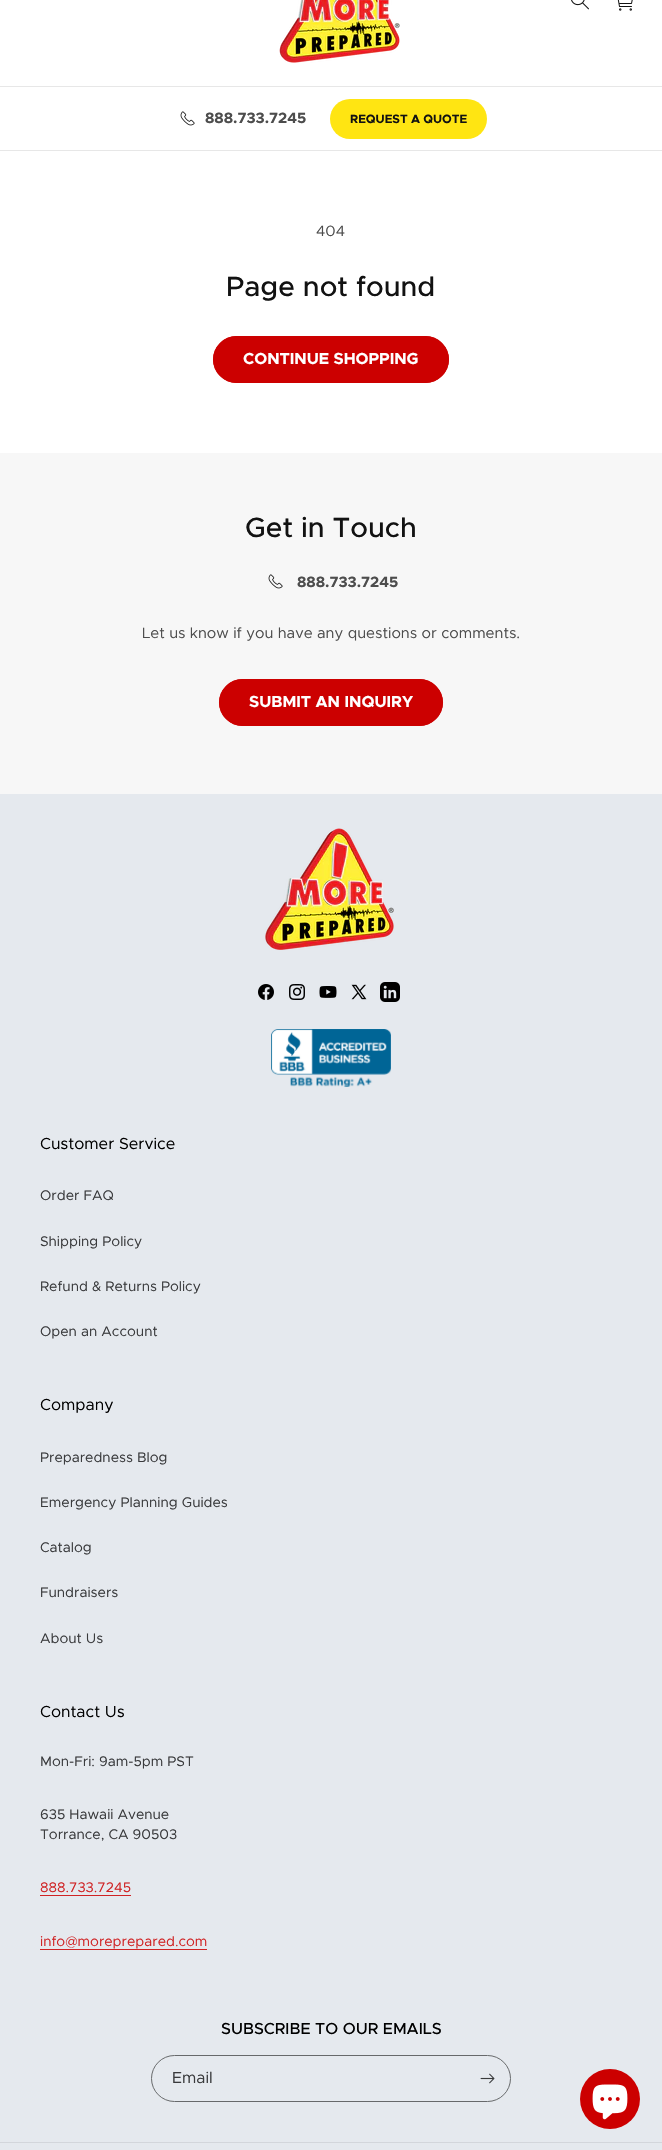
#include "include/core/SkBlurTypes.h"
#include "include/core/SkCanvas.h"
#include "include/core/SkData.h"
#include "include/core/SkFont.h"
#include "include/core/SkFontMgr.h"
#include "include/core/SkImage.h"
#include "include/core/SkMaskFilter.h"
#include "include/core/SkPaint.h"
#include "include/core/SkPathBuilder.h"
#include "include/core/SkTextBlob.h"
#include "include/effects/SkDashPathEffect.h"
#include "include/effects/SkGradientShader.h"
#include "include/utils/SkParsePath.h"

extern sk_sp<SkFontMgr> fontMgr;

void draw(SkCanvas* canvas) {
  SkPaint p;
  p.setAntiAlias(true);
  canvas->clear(SK_ColorWHITE);
  canvas->drawImageRect(SkImages::DeferredFromEncodedData(SkData::MakeFromFileName("images/1.png")), SkRect::MakeLTRB(279, 0, 400, 63), SkSamplingOptions());
  canvas->drawImageRect(SkImages::DeferredFromEncodedData(SkData::MakeFromFileName("images/2.png")), SkRect::MakeLTRB(571, 0, 589, 10), SkSamplingOptions());
  canvas->drawImageRect(SkImages::DeferredFromEncodedData(SkData::MakeFromFileName("images/3.png")), SkRect::MakeLTRB(617, 0, 633, 11), SkSamplingOptions());
  p.setColor(SkColorSetRGB(231, 231, 231));
  canvas->drawRect(SkRect::MakeLTRB(0, 86, 662, 87), p);
  canvas->drawRect(SkRect::MakeLTRB(0, 150, 662, 151), p);
  canvas->drawImageRect(SkImages::DeferredFromEncodedData(SkData::MakeFromFileName("images/4.png")), SkRect::MakeLTRB(180, 111, 195, 126), SkSamplingOptions());
  p.setColor(SkColorSetRGB(255, 229, 18));
  canvas->drawRoundRect(SkRect::MakeLTRB(330, 99, 487, 139), 20, 20, p);
  p.setColor(SkColorSetRGB(204, 0, 0));
  canvas->drawRoundRect(SkRect::MakeLTRB(213, 336, 449, 383), 23.5f, 23.5f, p);
  p.setStyle(SkPaint::kStroke_Style);
  p.setStrokeWidth(1);
  canvas->drawRoundRect(SkRect::MakeLTRB(213.5f, 336.5f, 448.5f, 382.5f), 23, 23, p);
  p.setStyle(SkPaint::kFill_Style);
  p.setColor(SkColorSetRGB(247, 247, 247));
  canvas->drawRect(SkRect::MakeLTRB(0, 453, 662, 794), p);
  canvas->drawImageRect(SkImages::DeferredFromEncodedData(SkData::MakeFromFileName("images/5.png")), SkRect::MakeLTRB(268, 574, 283, 589), SkSamplingOptions());
  p.setColor(SkColorSetRGB(204, 0, 0));
  canvas->drawRoundRect(SkRect::MakeLTRB(219, 679, 443, 726), 23.5f, 23.5f, p);
  p.setStyle(SkPaint::kStroke_Style);
  canvas->drawRoundRect(SkRect::MakeLTRB(219.5f, 679.5f, 442.5f, 725.5f), 23, 23, p);
  p.setStyle(SkPaint::kFill_Style);
  p.setColor(SkColorSetRGB(229, 233, 238));
  canvas->drawRect(SkRect::MakeLTRB(0, 794, 662, 2150), p);
  canvas->drawImageRect(SkImages::DeferredFromEncodedData(SkData::MakeFromFileName("images/6.png")), SkRect::MakeLTRB(265, 828, 394, 950), SkSamplingOptions());
  canvas->drawImageRect(SkImages::DeferredFromEncodedData(SkData::MakeFromFileName("images/7.png")), SkRect::MakeLTRB(258, 984, 274, 1000), SkSamplingOptions());
  canvas->drawImageRect(SkImages::DeferredFromEncodedData(SkData::MakeFromFileName("images/8.png")), SkRect::MakeLTRB(289, 984, 305, 1000), SkSamplingOptions());
  canvas->drawImageRect(SkImages::DeferredFromEncodedData(SkData::MakeFromFileName("images/9.png")), SkRect::MakeLTRB(319, 986, 337, 998), SkSamplingOptions());
  canvas->drawImageRect(SkImages::DeferredFromEncodedData(SkData::MakeFromFileName("images/10.png")), SkRect::MakeLTRB(351, 984, 367, 1000), SkSamplingOptions());
  canvas->drawImageRect(SkImages::DeferredFromEncodedData(SkData::MakeFromFileName("images/11.png")), SkRect::MakeLTRB(380, 982, 400, 1002), SkSamplingOptions());
  canvas->drawImageRect(SkImages::DeferredFromEncodedData(SkData::MakeFromFileName("images/12.png")), SkRect::MakeLTRB(271, 1029, 391, 1087), SkSamplingOptions());
  p.setColor(SkColorSetRGB(208, 35, 36));
  canvas->drawRect(SkRect::MakeLTRB(40, 1895, 131, 1896), p);
  canvas->drawRect(SkRect::MakeLTRB(40, 1949, 207, 1950), p);
  p.setStyle(SkPaint::kStroke_Style);
  p.setColor(SkColorSetRGB(103, 105, 107));
  canvas->drawRoundRect(SkRect::MakeLTRB(151.5f, 2055.5f, 510.5f, 2101.5f), 23, 23, p);
  canvas->drawImageRect(SkImages::DeferredFromEncodedData(SkData::MakeFromFileName("images/13.png")), SkRect::MakeLTRB(480, 2073, 495, 2084), SkSamplingOptions());
  p.setStyle(SkPaint::kFill_Style);
  p.setColor(SkColorSetRGB(211, 214, 219));
  canvas->drawRect(SkRect::MakeLTRB(0, 2142, 662, 2143), p);
  p.setColor(SkColorSetRGB(204, 0, 0));
  canvas->drawCircle(610, 2099, 30, p);
  canvas->drawImageRect(SkImages::DeferredFromEncodedData(SkData::MakeFromFileName("images/14.png")), SkRect::MakeLTRB(592, 2084, 628, 2120), SkSamplingOptions());
  SkFont font1(fontMgr->matchFamilyStyle("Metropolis", SkFontStyle::Bold()), 15);
  font1.setSubpixel(true);
  p.setColor(SkColorSetRGB(77, 77, 77));
  canvas->drawString("888.733.7245", 205, 123, font1, p);
  SkFont font2(fontMgr->matchFamilyStyle("Metropolis", SkFontStyle::Bold()), 12);
  font2.setSubpixel(true);
  p.setColor(SkColorSetRGB(18, 18, 18));
  canvas->drawString("REQUEST A QUOTE", 350, 123, font2, p);
  SkFont font3(fontMgr->matchFamilyStyle("Metropolis", SkFontStyle::Normal()), 15);
  font3.setSubpixel(true);
  p.setColor(SkColorSetRGB(77, 77, 77));
  canvas->drawString("404", 316, 236, font3, p);
  SkFont font4(fontMgr->matchFamilyStyle("Metropolis", SkFontStyle(500, SkFontStyle::kNormal_Width, SkFontStyle::kUpright_Slant)), 28);
  font4.setSubpixel(true);
  p.setColor(SkColorSetRGB(18, 18, 18));
  canvas->drawString("Page not found", 226, 296, font4, p);
  SkFont font5(fontMgr->matchFamilyStyle("Metropolis", SkFontStyle::Bold()), 16);
  font5.setSubpixel(true);
  p.setColor(SK_ColorWHITE);
  canvas->drawString("CONTINUE SHOPPING", 243, 364, font5, p);
  p.setColor(SkColorSetRGB(18, 18, 18));
  canvas->drawString("Get in Touch", 245, 537, font4, p);
  p.setColor(SkColorSetRGB(77, 77, 77));
  canvas->drawString("888.733.7245", 297, 587, font1, p);
  canvas->drawString("Let us know if you have any questions or comments.", 142, 638, font3, p);
  p.setColor(SK_ColorWHITE);
  canvas->drawString("SUBMIT AN INQUIRY", 249, 707, font5, p);
  SkFont font6(fontMgr->matchFamilyStyle("Metropolis", SkFontStyle::Normal()), 16);
  font6.setSubpixel(true);
  p.setColor(SK_ColorBLACK);
  canvas->drawString("Customer Service", 40, 1149, font6, p);
  SkFont font7(fontMgr->matchFamilyStyle("Metropolis", SkFontStyle::Normal()), 14);
  font7.setSubpixel(true);
  p.setColor(SkColorSetRGB(57, 58, 60));
  canvas->drawString("Order FAQ", 40, 1200, font7, p);
  canvas->drawString("Shipping Policy", 40, 1246, font7, p);
  canvas->drawString("Refund & Returns Policy", 40, 1291, font7, p);
  canvas->drawString("Open an Account", 40, 1336, font7, p);
  p.setColor(SK_ColorBLACK);
  canvas->drawString("Company", 40, 1410, font6, p);
  p.setColor(SkColorSetRGB(57, 58, 60));
  canvas->drawString("Preparedness Blog", 40, 1462, font7, p);
  canvas->drawString("Emergency Planning Guides", 40, 1507, font7, p);
  canvas->drawString("Catalog", 40, 1552, font7, p);
  canvas->drawString("Fundraisers", 40, 1597, font7, p);
  canvas->drawString("About Us", 40, 1643, font7, p);
  p.setColor(SK_ColorBLACK);
  canvas->drawString("Contact Us", 40, 1717, font6, p);
  p.setColor(SkColorSetRGB(57, 58, 60));
  canvas->drawString("Mon-Fri: 9am-5pm PST", 40, 1766, font7, p);
  canvas->drawString("635 Hawaii Avenue", 40, 1819, font7, p);
  canvas->drawString("Torrance, CA 90503", 40, 1839, font7, p);
  p.setColor(SkColorSetRGB(208, 35, 36));
  canvas->drawString("888.733.7245", 40, 1892, font7, p);
  canvas->drawString("info@moreprepared.com", 40, 1946, font7, p);
  SkFont font8(fontMgr->matchFamilyStyle("Metropolis", SkFontStyle(500, SkFontStyle::kNormal_Width, SkFontStyle::kUpright_Slant)), 16);
  font8.setSubpixel(true);
  p.setColor(SK_ColorBLACK);
  canvas->drawString("SUBSCRIBE TO OUR EMAILS", 221, 2034, font8, p);
  p.setColor(SkColorSetRGB(57, 58, 60));
  canvas->drawString("Email", 172, 2083, font6, p);
}
